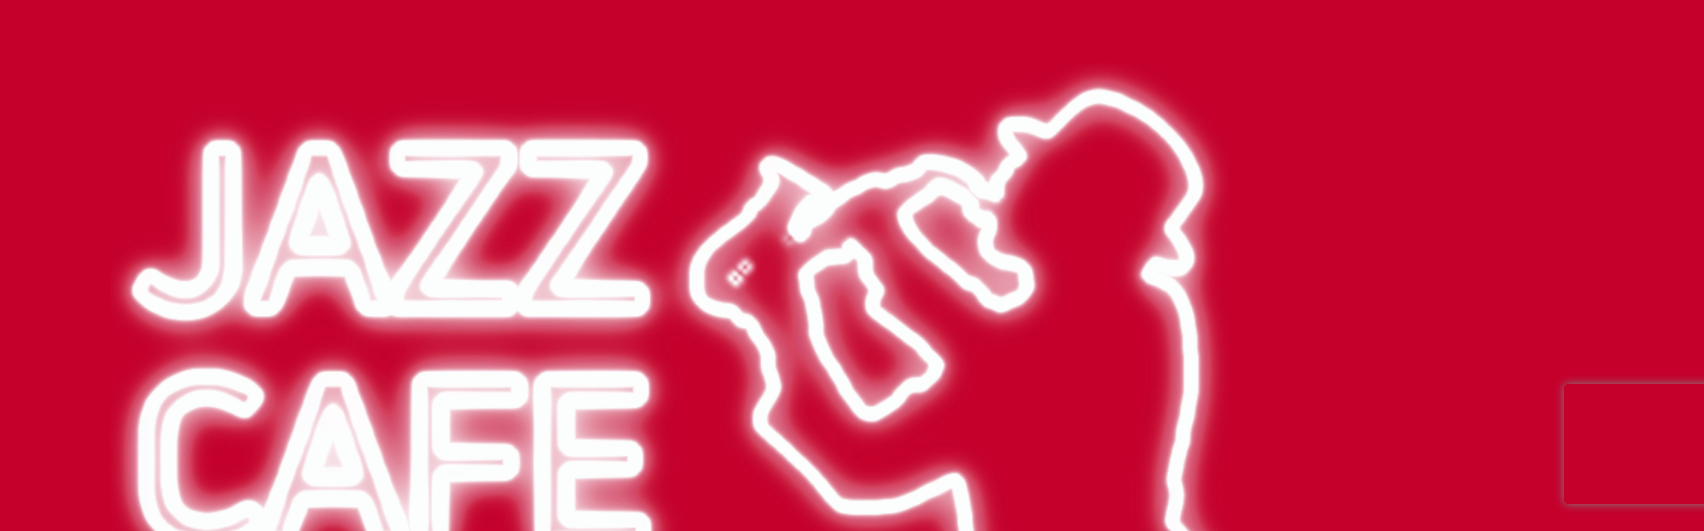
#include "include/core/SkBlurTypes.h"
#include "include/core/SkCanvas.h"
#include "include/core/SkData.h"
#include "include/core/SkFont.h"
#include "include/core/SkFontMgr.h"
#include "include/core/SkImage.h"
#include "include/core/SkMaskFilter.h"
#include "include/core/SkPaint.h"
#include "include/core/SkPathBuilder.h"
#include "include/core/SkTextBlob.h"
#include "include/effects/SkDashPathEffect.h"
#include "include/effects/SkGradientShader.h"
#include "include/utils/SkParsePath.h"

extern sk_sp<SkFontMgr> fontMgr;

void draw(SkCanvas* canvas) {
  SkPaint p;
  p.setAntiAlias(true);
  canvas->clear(SkColorSetRGB(196, 0, 43));
  canvas->drawImageRect(SkImages::DeferredFromEncodedData(SkData::MakeFromFileName("images/1.png")), SkRect::MakeLTRB(110, 63, 1229, 531), SkSamplingOptions());
  canvas->save();
  canvas->clipPath(SkPathBuilder(SkPathFillType::kEvenOdd).moveTo(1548, 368).lineTo(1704, 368).lineTo(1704, 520).lineTo(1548, 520).close().moveTo(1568, 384).lineTo(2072, 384).cubicTo(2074, 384, 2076, 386, 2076, 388).lineTo(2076, 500).cubicTo(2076, 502, 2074, 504, 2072, 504).lineTo(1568, 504).cubicTo(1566, 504, 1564, 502, 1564, 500).lineTo(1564, 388).cubicTo(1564, 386, 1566, 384, 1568, 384).close().detach(), true);
  p.setColor(SkColorSetRGB(128, 128, 128));
  p.setMaskFilter(SkMaskFilter::MakeBlur(kNormal_SkBlurStyle, 5));
  canvas->drawRoundRect(SkRect::MakeLTRB(1564, 384, 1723, 504), 4, 4, p);
  p.setMaskFilter(nullptr);
  canvas->restore();
}
